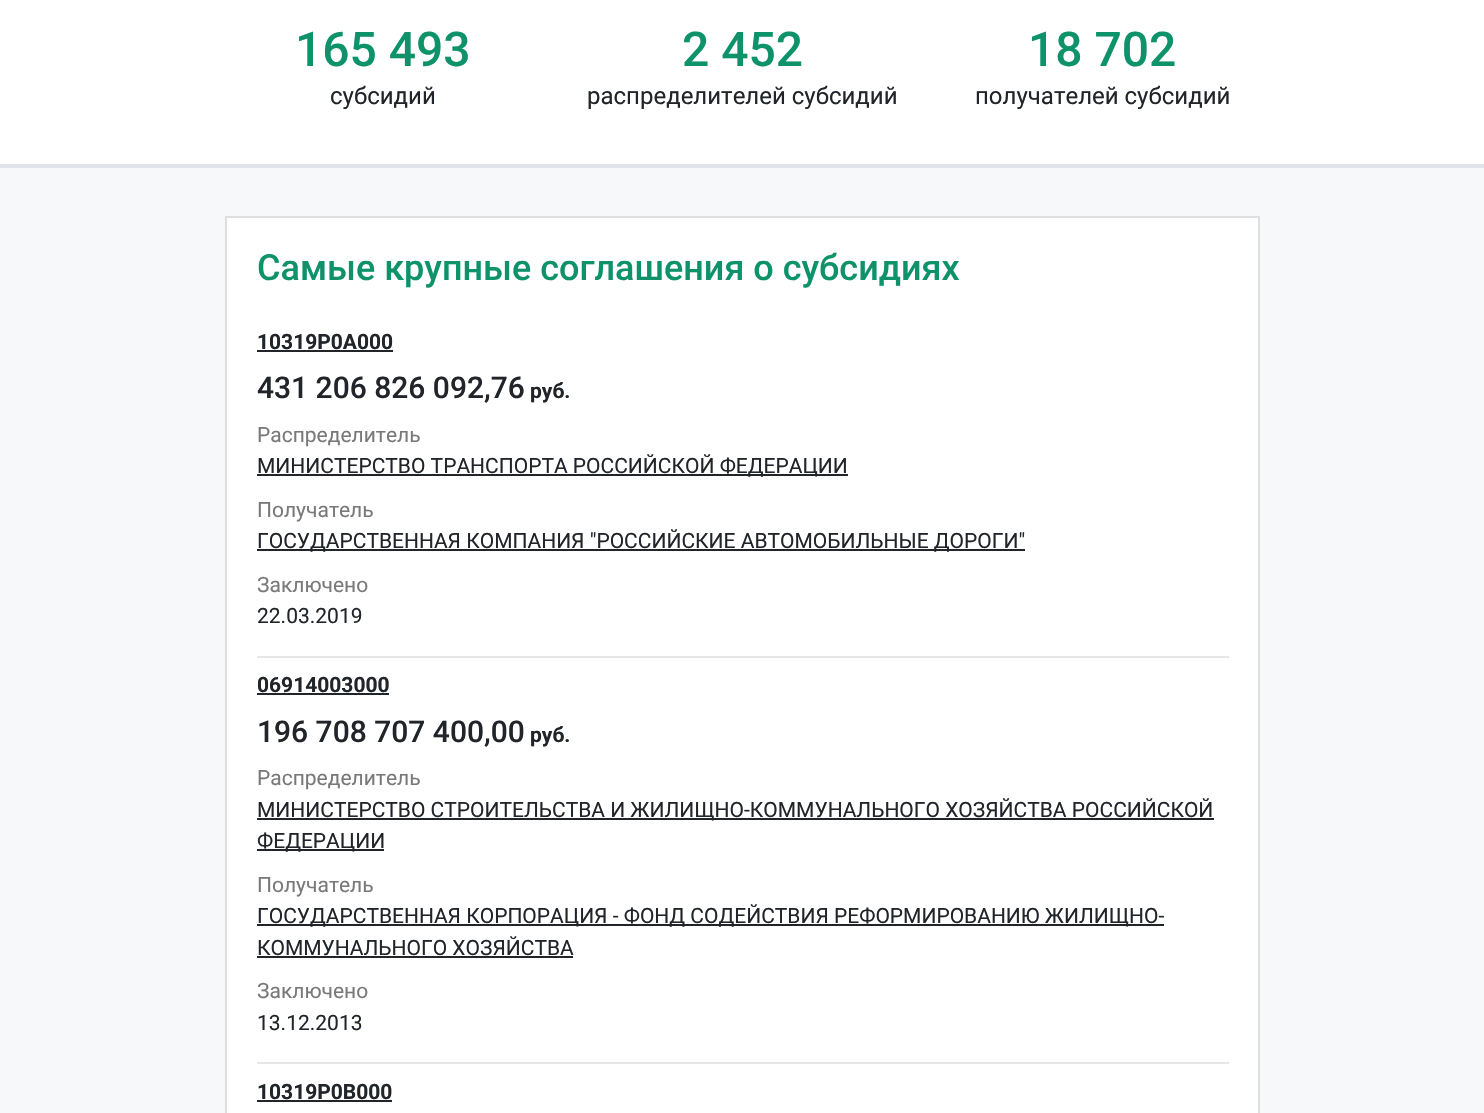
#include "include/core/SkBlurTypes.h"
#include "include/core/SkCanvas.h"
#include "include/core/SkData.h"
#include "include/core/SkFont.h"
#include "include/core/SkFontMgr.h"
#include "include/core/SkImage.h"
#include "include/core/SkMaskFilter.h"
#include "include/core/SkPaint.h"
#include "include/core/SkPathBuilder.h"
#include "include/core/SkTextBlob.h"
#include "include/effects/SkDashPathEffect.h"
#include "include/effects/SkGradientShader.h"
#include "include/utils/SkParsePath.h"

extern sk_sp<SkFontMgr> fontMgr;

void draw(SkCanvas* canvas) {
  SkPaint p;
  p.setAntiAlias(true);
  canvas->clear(SK_ColorWHITE);
  p.setColor(SkColorSetRGB(223, 226, 234));
  canvas->drawRect(SkRect::MakeLTRB(0, 164, 1484, 168), p);
  p.setColor(SkColorSetRGB(247, 248, 249));
  canvas->drawRect(SkRect::MakeLTRB(0, 168, 1484, 1113), p);
  p.setColor(SK_ColorWHITE);
  canvas->drawRect(SkRect::MakeLTRB(226, 217, 1259, 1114), p);
  p.setStyle(SkPaint::kStroke_Style);
  p.setStrokeWidth(2);
  p.setColor(SkColorSetRGB(223, 223, 223));
  canvas->drawRect(SkRect::MakeLTRB(226, 217, 1259, 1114), p);
  p.setStyle(SkPaint::kFill_Style);
  p.setColor(SkColorSetRGB(33, 37, 41));
  canvas->drawRect(SkRect::MakeLTRB(257, 350, 393, 352), p);
  canvas->drawRect(SkRect::MakeLTRB(257, 474, 848, 476), p);
  canvas->drawRect(SkRect::MakeLTRB(257, 549, 1025, 551), p);
  p.setColor(SkColorSetRGB(230, 230, 230));
  canvas->drawRect(SkRect::MakeLTRB(257, 656, 1229, 658), p);
  p.setColor(SkColorSetRGB(33, 37, 41));
  canvas->drawRect(SkRect::MakeLTRB(257, 693, 389, 695), p);
  canvas->drawRect(SkRect::MakeLTRB(257, 818, 1214, 820), p);
  canvas->drawRect(SkRect::MakeLTRB(257, 849, 384, 851), p);
  canvas->drawRect(SkRect::MakeLTRB(257, 924, 1164, 926), p);
  canvas->drawRect(SkRect::MakeLTRB(257, 956, 573, 958), p);
  p.setColor(SkColorSetRGB(230, 230, 230));
  canvas->drawRect(SkRect::MakeLTRB(257, 1062, 1229, 1064), p);
  p.setColor(SkColorSetRGB(33, 37, 41));
  canvas->drawRect(SkRect::MakeLTRB(257, 1100, 392, 1102), p);
  SkFont font1(fontMgr->matchFamilyStyle("Roboto", SkFontStyle(500, SkFontStyle::kNormal_Width, SkFontStyle::kUpright_Slant)), 48);
  font1.setSubpixel(true);
  p.setColor(SkColorSetRGB(14, 146, 106));
  canvas->drawString("165 493", 295, 66, font1, p);
  SkFont font2(fontMgr->matchFamilyStyle("Roboto", SkFontStyle::Normal()), 24);
  font2.setSubpixel(true);
  p.setColor(SkColorSetRGB(33, 37, 41));
  canvas->drawString("субсидий", 330, 104, font2, p);
  p.setColor(SkColorSetRGB(14, 146, 106));
  canvas->drawString("2 452", 682, 66, font1, p);
  p.setColor(SkColorSetRGB(33, 37, 41));
  canvas->drawString("распределителей субсидий", 587, 104, font2, p);
  p.setColor(SkColorSetRGB(14, 146, 106));
  canvas->drawString("18 702", 1028, 66, font1, p);
  p.setColor(SkColorSetRGB(33, 37, 41));
  canvas->drawString("получателей субсидий", 975, 104, font2, p);
  SkFont font3(fontMgr->matchFamilyStyle("Roboto", SkFontStyle(500, SkFontStyle::kNormal_Width, SkFontStyle::kUpright_Slant)), 36);
  font3.setSubpixel(true);
  p.setColor(SkColorSetRGB(14, 146, 106));
  canvas->drawString("Самые крупные соглашения о субсидиях", 257, 280, font3, p);
  SkFont font4(fontMgr->matchFamilyStyle("Roboto", SkFontStyle::Bold()), 21);
  font4.setSubpixel(true);
  p.setColor(SkColorSetRGB(33, 37, 41));
  canvas->drawString("10319P0A000", 257, 349, font4, p);
  SkFont font5(fontMgr->matchFamilyStyle("Roboto", SkFontStyle(500, SkFontStyle::kNormal_Width, SkFontStyle::kUpright_Slant)), 30);
  font5.setSubpixel(true);
  canvas->drawString("431 206 826 092,76", 257, 398, font5, p);
  canvas->drawString("руб.", 530, 398, font4, p);
  SkFont font6(fontMgr->matchFamilyStyle("Roboto", SkFontStyle::Normal()), 21);
  font6.setSubpixel(true);
  p.setColor(SkColorSetRGB(121, 121, 121));
  canvas->drawString("Распределитель", 257, 442, font6, p);
  p.setColor(SkColorSetRGB(33, 37, 41));
  canvas->drawString("МИНИСТЕРСТВО ТРАНСПОРТА РОССИЙСКОЙ ФЕДЕРАЦИИ", 257, 473, font6, p);
  p.setColor(SkColorSetRGB(121, 121, 121));
  canvas->drawString("Получатель", 257, 517, font6, p);
  p.setColor(SkColorSetRGB(33, 37, 41));
  canvas->drawString("ГОСУДАРСТВЕННАЯ КОМПАНИЯ \"РОССИЙСКИЕ АВТОМОБИЛЬНЫЕ ДОРОГИ\"", 257, 548, font6, p);
  p.setColor(SkColorSetRGB(121, 121, 121));
  canvas->drawString("Заключено", 257, 592, font6, p);
  p.setColor(SkColorSetRGB(33, 37, 41));
  canvas->drawString("22.03.2019", 257, 623, font6, p);
  canvas->drawString("06914003000", 257, 692, font4, p);
  canvas->drawString("196 708 707 400,00", 257, 742, font5, p);
  canvas->drawString("руб.", 530, 742, font4, p);
  p.setColor(SkColorSetRGB(121, 121, 121));
  canvas->drawString("Распределитель", 257, 785, font6, p);
  p.setColor(SkColorSetRGB(33, 37, 41));
  canvas->drawString("МИНИСТЕРСТВО СТРОИТЕЛЬСТВА И ЖИЛИЩНО-КОММУНАЛЬНОГО ХОЗЯЙСТВА РОССИЙСКОЙ", 257, 817, font6, p);
  canvas->drawString("ФЕДЕРАЦИИ", 257, 848, font6, p);
  p.setColor(SkColorSetRGB(121, 121, 121));
  canvas->drawString("Получатель", 257, 892, font6, p);
  p.setColor(SkColorSetRGB(33, 37, 41));
  canvas->drawString("ГОСУДАРСТВЕННАЯ КОРПОРАЦИЯ - ФОНД СОДЕЙСТВИЯ РЕФОРМИРОВАНИЮ ЖИЛИЩНО-", 257, 923, font6, p);
  canvas->drawString("КОММУНАЛЬНОГО ХОЗЯЙСТВА", 257, 955, font6, p);
  p.setColor(SkColorSetRGB(121, 121, 121));
  canvas->drawString("Заключено", 257, 998, font6, p);
  p.setColor(SkColorSetRGB(33, 37, 41));
  canvas->drawString("13.12.2013", 257, 1030, font6, p);
  canvas->drawString("10319P0B000", 257, 1099, font4, p);
}
